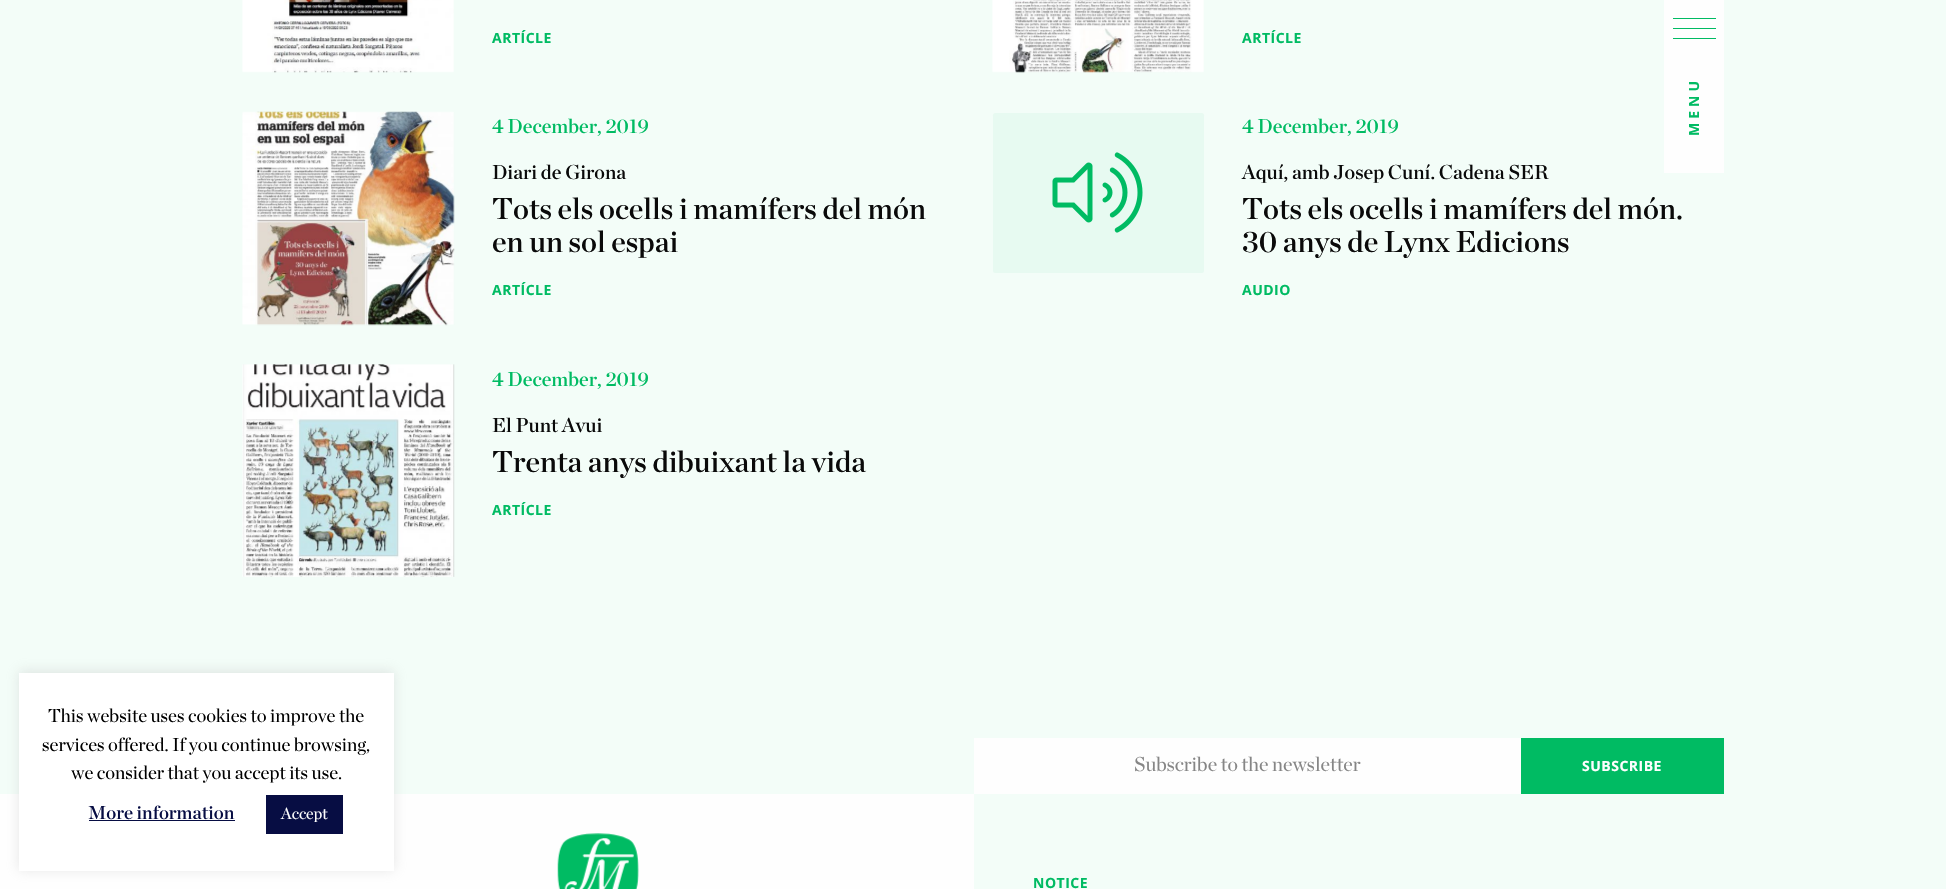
#include "include/core/SkBlurTypes.h"
#include "include/core/SkCanvas.h"
#include "include/core/SkData.h"
#include "include/core/SkFont.h"
#include "include/core/SkFontMgr.h"
#include "include/core/SkImage.h"
#include "include/core/SkMaskFilter.h"
#include "include/core/SkPaint.h"
#include "include/core/SkPathBuilder.h"
#include "include/core/SkTextBlob.h"
#include "include/effects/SkDashPathEffect.h"
#include "include/effects/SkGradientShader.h"
#include "include/utils/SkParsePath.h"

extern sk_sp<SkFontMgr> fontMgr;

void draw(SkCanvas* canvas) {
  SkPaint p;
  p.setAntiAlias(true);
  auto spacedText = [&](const char* s, float x, float y, const SkFont& font, const SkPaint& ink, float letter, float word) {
    std::vector<SkGlyphID> glyphs(font.countText(s, strlen(s), SkTextEncoding::kUTF8));
    std::vector<float> xs(glyphs.size());
    font.textToGlyphs(s, strlen(s), SkTextEncoding::kUTF8, glyphs);
    font.getXPos(glyphs, xs, x);
    float extra = 0;
    for (size_t i = 0; i < glyphs.size(); i++) {
      xs[i] += extra;
      extra += letter + word * (glyphs[i] == font.unicharToGlyph(' '));
    }
    canvas->drawTextBlob(SkTextBlob::MakeFromPosHGlyphs(glyphs, xs, y, font), 0, 0, ink);
  };
  canvas->clear(SkColorSetRGB(243, 253, 248));
  p.setColor(SkColorSetRGB(254, 254, 254));
  canvas->drawRect(SkRect::MakeLTRB(0, 794, 974, 889), p);
  p.setColor(SkColorSetARGB(77, 172, 171, 171));
  p.setMaskFilter(SkMaskFilter::MakeBlur(kNormal_SkBlurStyle, 6));
  canvas->drawRect(SkRect::MakeLTRB(19, 671, 394, 870), p);
  p.setMaskFilter(nullptr);
  p.setColor(SK_ColorWHITE);
  canvas->drawRect(SkRect::MakeLTRB(19, 673, 394, 871), p);
  p.setColor(SkColorSetRGB(7, 13, 67));
  canvas->drawRect(SkRect::MakeLTRB(89, 820, 235, 821), p);
  canvas->drawRect(SkRect::MakeLTRB(266, 795, 343, 834), p);
  canvas->drawImageRect(SkImages::DeferredFromEncodedData(SkData::MakeFromFileName("images/1.png")), SkRect::MakeLTRB(242, 0, 454, 73), SkSamplingOptions());
  canvas->drawImageRect(SkImages::DeferredFromEncodedData(SkData::MakeFromFileName("images/2.png")), SkRect::MakeLTRB(992, 0, 1204, 73), SkSamplingOptions());
  canvas->drawImageRect(SkImages::DeferredFromEncodedData(SkData::MakeFromFileName("images/3.png")), SkRect::MakeLTRB(242, 111, 455, 326), SkSamplingOptions());
  p.setColor(SkColorSetRGB(231, 250, 241));
  canvas->drawRoundRect(SkRect::MakeLTRB(993, 113, 1204, 273), 2.5f, 2.5f, p);
  canvas->drawImageRect(SkImages::DeferredFromEncodedData(SkData::MakeFromFileName("images/4.png")), SkRect::MakeLTRB(1052, 152, 1143, 233), SkSamplingOptions());
  canvas->drawImageRect(SkImages::DeferredFromEncodedData(SkData::MakeFromFileName("images/5.png")), SkRect::MakeLTRB(242, 364, 455, 577), SkSamplingOptions());
  p.setColor(SkColorSetRGB(254, 254, 254));
  canvas->drawRect(SkRect::MakeLTRB(1664, 0, 1724, 173), p);
  p.setColor(SkColorSetRGB(0, 187, 99));
  canvas->drawRect(SkRect::MakeLTRB(1673, 18, 1716, 19), p);
  canvas->drawRect(SkRect::MakeLTRB(1673, 28, 1716, 29), p);
  canvas->drawRect(SkRect::MakeLTRB(1673, 38, 1716, 39), p);
  p.setColor(SkColorSetRGB(254, 254, 254));
  canvas->drawRect(SkRect::MakeLTRB(974, 738, 1521, 794), p);
  p.setColor(SkColorSetRGB(0, 187, 99));
  canvas->drawRect(SkRect::MakeLTRB(1521, 738, 1724, 794), p);
  canvas->drawImageRect(SkImages::DeferredFromEncodedData(SkData::MakeFromFileName("images/6.png")), SkRect::MakeLTRB(557, 833, 639, 889), SkSamplingOptions());
  SkFont font1(fontMgr->matchFamilyStyle("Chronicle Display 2", SkFontStyle::Normal()), 18.75f);
  font1.setSubpixel(true);
  p.setColor(SK_ColorBLACK);
  canvas->drawString("This website uses cookies to improve the", 48, 722, font1, p);
  canvas->drawString("services offered. If you continue browsing,", 42, 751, font1, p);
  canvas->drawString("we consider that you accept its use.", 71, 779, font1, p);
  SkFont font2(fontMgr->matchFamilyStyle("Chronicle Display", SkFontStyle::Normal()), 18.75f);
  font2.setSubpixel(true);
  p.setColor(SkColorSetRGB(7, 13, 67));
  canvas->drawString("More information", 88, 819, font2, p);
  SkFont font3(fontMgr->matchFamilyStyle("Chronicle Display 2", SkFontStyle::Normal()), 16);
  font3.setSubpixel(true);
  p.setColor(SkColorSetRGB(254, 254, 254));
  canvas->drawString("Accept", 281, 819, font3, p);
  SkFont font4(fontMgr->matchFamilyStyle("Open Sans", SkFontStyle::Bold()), 14);
  font4.setSubpixel(true);
  p.setColor(SkColorSetRGB(0, 187, 99));
  spacedText("ARTÍCLE", 492, 43, font4, p, 0.5f, 0);
  spacedText("ARTÍCLE", 1242, 43, font4, p, 0.5f, 0);
  SkFont font5(fontMgr->matchFamilyStyle("Chronicle Display", SkFontStyle::Normal()), 20);
  font5.setSubpixel(true);
  canvas->drawString("4 December, 2019", 492, 133, font5, p);
  p.setColor(SkColorSetRGB(10, 10, 10));
  canvas->drawString("Diari de Girona", 492, 179, font5, p);
  SkFont font6(fontMgr->matchFamilyStyle("Chronicle Display", SkFontStyle::Normal()), 30);
  font6.setSubpixel(true);
  canvas->drawString("Tots els ocells i mamífers del món", 492, 219, font6, p);
  canvas->drawString("en un sol espai", 492, 252, font6, p);
  p.setColor(SkColorSetRGB(0, 187, 99));
  spacedText("ARTÍCLE", 492, 295, font4, p, 0.5f, 0);
  canvas->drawString("4 December, 2019", 1242, 133, font5, p);
  p.setColor(SkColorSetRGB(10, 10, 10));
  canvas->drawString("Aquí, amb Josep Cuní. Cadena SER", 1242, 179, font5, p);
  canvas->drawString("Tots els ocells i mamífers del món.", 1242, 219, font6, p);
  canvas->drawString("30 anys de Lynx Edicions", 1242, 252, font6, p);
  p.setColor(SkColorSetRGB(0, 187, 99));
  spacedText("AUDIO", 1242, 295, font4, p, 0.5f, 0);
  canvas->drawString("4 December, 2019", 492, 386, font5, p);
  p.setColor(SkColorSetRGB(10, 10, 10));
  canvas->drawString("El Punt Avui", 492, 432, font5, p);
  canvas->drawString("Trenta anys dibuixant la vida", 492, 472, font6, p);
  p.setColor(SkColorSetRGB(0, 187, 99));
  spacedText("ARTÍCLE", 492, 515, font4, p, 0.5f, 0);
  canvas->save();
  canvas->rotate(-90, 1699, 136);
  spacedText("MENU", 1699, 136, font4, p, 4, 0);
  canvas->restore();
  SkFont font7(fontMgr->matchFamilyStyle("Chronicle Display 2", SkFontStyle::Normal()), 20);
  font7.setSubpixel(true);
  p.setColor(SkColorSetRGB(134, 134, 134));
  canvas->drawString("Subscribe to the newsletter", 1134, 771, font7, p);
  p.setColor(SkColorSetRGB(254, 254, 254));
  spacedText("SUBSCRIBE", 1582, 771, font4, p, 0.5f, 0);
  p.setColor(SkColorSetRGB(0, 187, 99));
  spacedText("NOTICE", 1033, 888, font4, p, 0.5f, 0);
}
